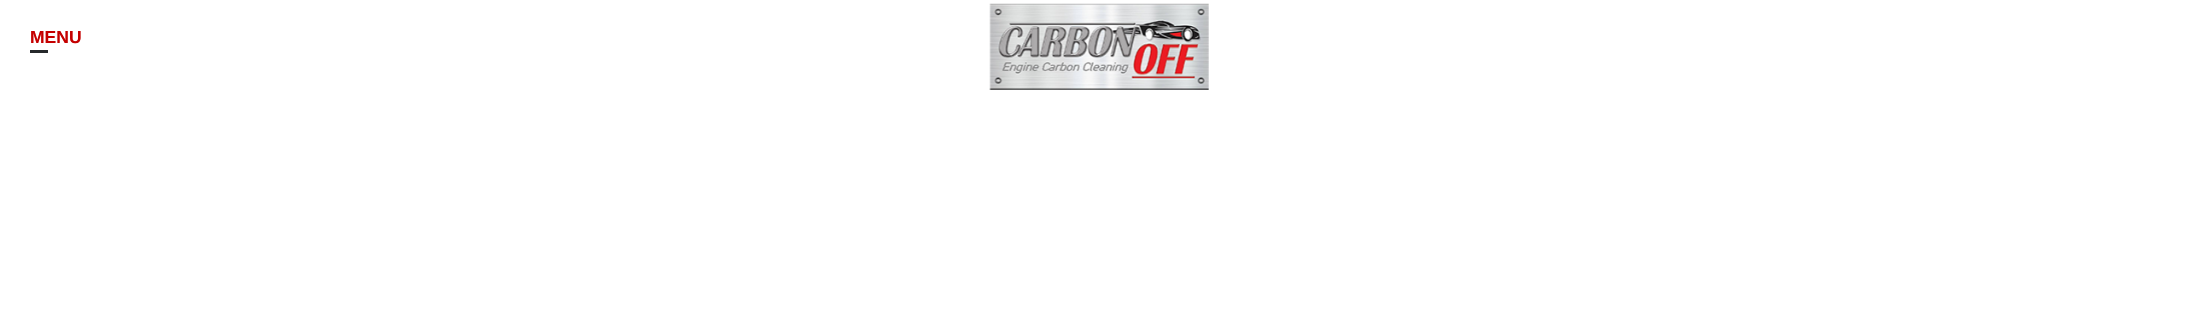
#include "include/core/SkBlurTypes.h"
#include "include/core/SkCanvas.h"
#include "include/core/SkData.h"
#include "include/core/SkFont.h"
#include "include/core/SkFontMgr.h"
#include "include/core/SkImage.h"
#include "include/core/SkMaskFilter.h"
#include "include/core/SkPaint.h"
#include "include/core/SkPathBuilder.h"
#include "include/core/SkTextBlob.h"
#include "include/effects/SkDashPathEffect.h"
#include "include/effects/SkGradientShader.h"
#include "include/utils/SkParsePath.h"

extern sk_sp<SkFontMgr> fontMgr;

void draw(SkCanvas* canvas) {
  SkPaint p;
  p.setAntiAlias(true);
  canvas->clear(SK_ColorWHITE);
  p.setColor(SkColorSetRGB(38, 41, 43));
  canvas->drawRect(SkRect::MakeLTRB(30, 50, 48, 53), p);
  canvas->drawImageRect(SkImages::DeferredFromEncodedData(SkData::MakeFromFileName("images/1.png")), SkRect::MakeLTRB(989, 3, 1209, 90), SkSamplingOptions());
  SkFont font1(fontMgr->matchFamilyStyle("Liberation Sans", SkFontStyle::Bold()), 17.5f);
  font1.setSubpixel(true);
  p.setColor(SkColorSetRGB(197, 0, 0));
  canvas->drawString("MENU", 30, 43, font1, p);
}
